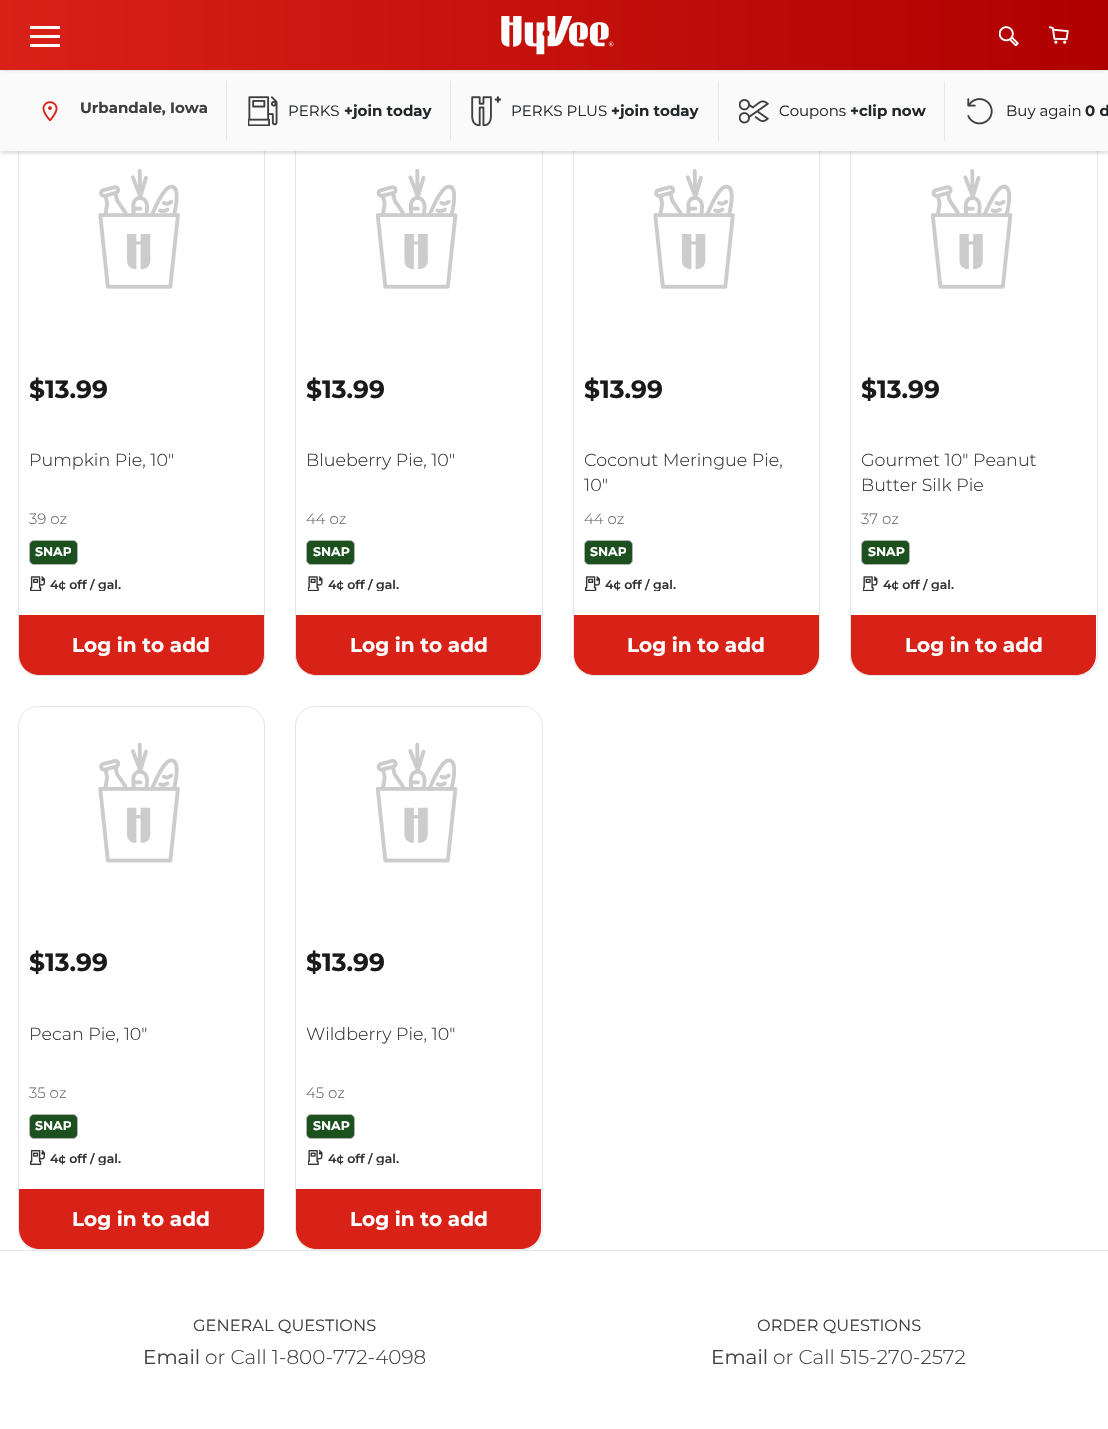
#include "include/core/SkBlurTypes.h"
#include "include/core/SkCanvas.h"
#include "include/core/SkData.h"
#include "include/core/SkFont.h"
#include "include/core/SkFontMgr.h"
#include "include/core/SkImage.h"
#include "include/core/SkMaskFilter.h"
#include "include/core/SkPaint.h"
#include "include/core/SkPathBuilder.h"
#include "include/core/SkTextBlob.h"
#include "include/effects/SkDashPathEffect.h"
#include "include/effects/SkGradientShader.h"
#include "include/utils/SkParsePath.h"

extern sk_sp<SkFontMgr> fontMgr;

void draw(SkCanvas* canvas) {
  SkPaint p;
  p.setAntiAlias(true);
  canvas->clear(SK_ColorWHITE);
  p.setStyle(SkPaint::kStroke_Style);
  p.setStrokeWidth(1);
  p.setColor(SkColorSetRGB(230, 230, 230));
  canvas->drawRoundRect(SkRect::MakeLTRB(18.5f, 133.5f, 264.5f, 675.5f), 19.5f, 19.5f, p);
  canvas->drawRoundRect(SkRect::MakeLTRB(295.5f, 133.5f, 542.5f, 675.5f), 19.5f, 19.5f, p);
  canvas->drawRoundRect(SkRect::MakeLTRB(573.5f, 133.5f, 819.5f, 675.5f), 19.5f, 19.5f, p);
  canvas->drawRoundRect(SkRect::MakeLTRB(850.5f, 133.5f, 1097.5f, 675.5f), 19.5f, 19.5f, p);
  p.setStyle(SkPaint::kFill_Style);
  p.setColor(SK_ColorWHITE);
  canvas->drawRect(SkRect::MakeLTRB(18, 133, 1098, 151), p);
  {
    const SkColor colors[] = {SkColorSetRGB(216, 33, 23), SkColorSetRGB(175, 0, 0)};
    const float stops[] = {0, 1};
    const SkPoint ends[] = {{0, 35}, {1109, 35}};
    p.setShader(SkGradientShader::MakeLinear(ends, colors, stops, 2, SkTileMode::kClamp));
    p.setAlpha(255);
  }
  canvas->drawRect(SkRect::MakeLTRB(0, 0, 1108, 70), p);
  canvas->save();
  canvas->clipRect(SkRect::MakeLTRB(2, 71, 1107, 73));
  p.setShader(nullptr);
  p.setColor(SkColorSetARGB(51, 0, 0, 0));
  p.setMaskFilter(SkMaskFilter::MakeBlur(kNormal_SkBlurStyle, 2.5f));
  canvas->drawRect(SkRect::MakeLTRB(3, 5, 1106, 70), p);
  p.setMaskFilter(nullptr);
  canvas->restore();
  p.setColor(SK_ColorWHITE);
  canvas->drawRect(SkRect::MakeLTRB(30, 35, 60, 38), p);
  canvas->drawRect(SkRect::MakeLTRB(30, 26, 60, 29), p);
  canvas->drawRect(SkRect::MakeLTRB(30, 44, 60, 47), p);
  canvas->drawImageRect(SkImages::DeferredFromEncodedData(SkData::MakeFromFileName("images/1.png")), SkRect::MakeLTRB(501, 16, 614, 55), SkSamplingOptions());
  canvas->drawImageRect(SkImages::DeferredFromEncodedData(SkData::MakeFromFileName("images/2.png")), SkRect::MakeLTRB(999, 26, 1019, 46), SkSamplingOptions());
  canvas->drawImageRect(SkImages::DeferredFromEncodedData(SkData::MakeFromFileName("images/3.png")), SkRect::MakeLTRB(1049, 26, 1069, 44), SkSamplingOptions());
  p.setColor(SkColorSetRGB(232, 232, 232));
  canvas->drawRect(SkRect::MakeLTRB(0, 70, 1108, 71), p);
  canvas->save();
  canvas->clipRect(SkRect::MakeLTRB(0, 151, 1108, 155));
  p.setColor(SkColorSetARGB(38, 0, 0, 0));
  p.setMaskFilter(SkMaskFilter::MakeBlur(kNormal_SkBlurStyle, 2));
  canvas->drawRect(SkRect::MakeLTRB(0, 73, 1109, 153), p);
  p.setMaskFilter(nullptr);
  canvas->restore();
  p.setColor(SkColorSetARGB(128, 245, 245, 245));
  canvas->drawRect(SkRect::MakeLTRB(0, 71, 1108, 151), p);
  canvas->drawImageRect(SkImages::DeferredFromEncodedData(SkData::MakeFromFileName("images/4.png")), SkRect::MakeLTRB(42, 101, 58, 121), SkSamplingOptions());
  p.setColor(SkColorSetRGB(232, 232, 232));
  canvas->drawRect(SkRect::MakeLTRB(226, 81, 227, 141), p);
  canvas->drawImageRect(SkImages::DeferredFromEncodedData(SkData::MakeFromFileName("images/5.png")), SkRect::MakeLTRB(248, 96, 278, 126), SkSamplingOptions());
  canvas->drawRect(SkRect::MakeLTRB(450, 81, 451, 141), p);
  canvas->drawImageRect(SkImages::DeferredFromEncodedData(SkData::MakeFromFileName("images/6.png")), SkRect::MakeLTRB(471, 96, 501, 126), SkSamplingOptions());
  canvas->drawRect(SkRect::MakeLTRB(718, 81, 719, 141), p);
  canvas->drawImageRect(SkImages::DeferredFromEncodedData(SkData::MakeFromFileName("images/7.png")), SkRect::MakeLTRB(739, 99, 769, 124), SkSamplingOptions());
  canvas->drawRect(SkRect::MakeLTRB(944, 81, 945, 141), p);
  canvas->drawImageRect(SkImages::DeferredFromEncodedData(SkData::MakeFromFileName("images/8.png")), SkRect::MakeLTRB(967, 98, 993, 125), SkSamplingOptions());
  canvas->drawImageRect(SkImages::DeferredFromEncodedData(SkData::MakeFromFileName("images/9.png")), SkRect::MakeLTRB(98, 169, 180, 289), SkSamplingOptions());
  p.setColor(SkColorSetRGB(28, 80, 30));
  canvas->drawRoundRect(SkRect::MakeLTRB(29.5f, 540.5f, 77.5f, 564.5f), 4.5f, 4.5f, p);
  p.setStyle(SkPaint::kStroke_Style);
  p.setColor(SkColorSetRGB(179, 179, 179));
  canvas->drawRoundRect(SkRect::MakeLTRB(29.5f, 540.5f, 77.5f, 564.5f), 4.5f, 4.5f, p);
  canvas->drawImageRect(SkImages::DeferredFromEncodedData(SkData::MakeFromFileName("images/10.png")), SkRect::MakeLTRB(30, 576, 45, 591), SkSamplingOptions());
  p.setStyle(SkPaint::kFill_Style);
  p.setColor(SkColorSetRGB(216, 33, 23));
  canvas->drawPath(SkPathBuilder().moveTo(19, 615).lineTo(264, 615).lineTo(264, 655).cubicTo(264, 666, 255, 675, 244, 675).lineTo(39, 675).cubicTo(28, 675, 19, 666, 19, 655).close().detach(), p);
  canvas->drawImageRect(SkImages::DeferredFromEncodedData(SkData::MakeFromFileName("images/11.png")), SkRect::MakeLTRB(375, 169, 458, 289), SkSamplingOptions());
  p.setColor(SkColorSetRGB(28, 80, 30));
  canvas->drawRoundRect(SkRect::MakeLTRB(306.5f, 540.5f, 354.5f, 564.5f), 4.5f, 4.5f, p);
  p.setStyle(SkPaint::kStroke_Style);
  p.setColor(SkColorSetRGB(179, 179, 179));
  canvas->drawRoundRect(SkRect::MakeLTRB(306.5f, 540.5f, 354.5f, 564.5f), 4.5f, 4.5f, p);
  canvas->drawImageRect(SkImages::DeferredFromEncodedData(SkData::MakeFromFileName("images/12.png")), SkRect::MakeLTRB(308, 576, 323, 591), SkSamplingOptions());
  p.setStyle(SkPaint::kFill_Style);
  p.setColor(SkColorSetRGB(216, 33, 23));
  canvas->drawPath(SkPathBuilder().moveTo(296, 615).lineTo(541, 615).lineTo(541, 655).cubicTo(541, 666, 532, 675, 521, 675).lineTo(316, 675).cubicTo(305, 675, 296, 666, 296, 655).close().detach(), p);
  canvas->drawImageRect(SkImages::DeferredFromEncodedData(SkData::MakeFromFileName("images/9.png")), SkRect::MakeLTRB(653, 169, 735, 289), SkSamplingOptions());
  p.setColor(SkColorSetRGB(28, 80, 30));
  canvas->drawRoundRect(SkRect::MakeLTRB(584.5f, 540.5f, 632.5f, 564.5f), 4.5f, 4.5f, p);
  p.setStyle(SkPaint::kStroke_Style);
  p.setColor(SkColorSetRGB(179, 179, 179));
  canvas->drawRoundRect(SkRect::MakeLTRB(584.5f, 540.5f, 632.5f, 564.5f), 4.5f, 4.5f, p);
  canvas->drawImageRect(SkImages::DeferredFromEncodedData(SkData::MakeFromFileName("images/10.png")), SkRect::MakeLTRB(585, 576, 600, 591), SkSamplingOptions());
  p.setStyle(SkPaint::kFill_Style);
  p.setColor(SkColorSetRGB(216, 33, 23));
  canvas->drawPath(SkPathBuilder().moveTo(574, 615).lineTo(819, 615).lineTo(819, 655).cubicTo(819, 666, 810, 675, 799, 675).lineTo(594, 675).cubicTo(583, 675, 574, 666, 574, 655).close().detach(), p);
  canvas->drawImageRect(SkImages::DeferredFromEncodedData(SkData::MakeFromFileName("images/11.png")), SkRect::MakeLTRB(930, 169, 1013, 289), SkSamplingOptions());
  p.setColor(SkColorSetRGB(28, 80, 30));
  canvas->drawRoundRect(SkRect::MakeLTRB(861.5f, 540.5f, 909.5f, 564.5f), 4.5f, 4.5f, p);
  p.setStyle(SkPaint::kStroke_Style);
  p.setColor(SkColorSetRGB(179, 179, 179));
  canvas->drawRoundRect(SkRect::MakeLTRB(861.5f, 540.5f, 909.5f, 564.5f), 4.5f, 4.5f, p);
  canvas->drawImageRect(SkImages::DeferredFromEncodedData(SkData::MakeFromFileName("images/12.png")), SkRect::MakeLTRB(863, 576, 878, 591), SkSamplingOptions());
  p.setStyle(SkPaint::kFill_Style);
  p.setColor(SkColorSetRGB(216, 33, 23));
  canvas->drawPath(SkPathBuilder().moveTo(851, 615).lineTo(1096, 615).lineTo(1096, 655).cubicTo(1096, 666, 1087, 675, 1076, 675).lineTo(871, 675).cubicTo(860, 675, 851, 666, 851, 655).close().detach(), p);
  p.setStyle(SkPaint::kStroke_Style);
  p.setColor(SkColorSetRGB(230, 230, 230));
  canvas->drawRoundRect(SkRect::MakeLTRB(18.5f, 706.5f, 264.5f, 1249.5f), 19.5f, 19.5f, p);
  canvas->drawImageRect(SkImages::DeferredFromEncodedData(SkData::MakeFromFileName("images/13.png")), SkRect::MakeLTRB(98, 742, 180, 863), SkSamplingOptions());
  p.setStyle(SkPaint::kFill_Style);
  p.setColor(SkColorSetRGB(28, 80, 30));
  canvas->drawRoundRect(SkRect::MakeLTRB(29.5f, 1114.5f, 77.5f, 1138.5f), 4.5f, 4.5f, p);
  p.setStyle(SkPaint::kStroke_Style);
  p.setColor(SkColorSetRGB(179, 179, 179));
  canvas->drawRoundRect(SkRect::MakeLTRB(29.5f, 1114.5f, 77.5f, 1138.5f), 4.5f, 4.5f, p);
  canvas->drawImageRect(SkImages::DeferredFromEncodedData(SkData::MakeFromFileName("images/14.png")), SkRect::MakeLTRB(30, 1150, 45, 1165), SkSamplingOptions());
  p.setStyle(SkPaint::kFill_Style);
  p.setColor(SkColorSetRGB(216, 33, 23));
  canvas->drawPath(SkPathBuilder().moveTo(19, 1189).lineTo(264, 1189).lineTo(264, 1229).cubicTo(264, 1240, 255, 1249, 244, 1249).lineTo(39, 1249).cubicTo(28, 1249, 19, 1240, 19, 1229).close().detach(), p);
  p.setStyle(SkPaint::kStroke_Style);
  p.setColor(SkColorSetRGB(230, 230, 230));
  canvas->drawRoundRect(SkRect::MakeLTRB(295.5f, 706.5f, 542.5f, 1249.5f), 19.5f, 19.5f, p);
  canvas->drawImageRect(SkImages::DeferredFromEncodedData(SkData::MakeFromFileName("images/15.png")), SkRect::MakeLTRB(375, 742, 458, 863), SkSamplingOptions());
  p.setStyle(SkPaint::kFill_Style);
  p.setColor(SkColorSetRGB(28, 80, 30));
  canvas->drawRoundRect(SkRect::MakeLTRB(306.5f, 1114.5f, 354.5f, 1138.5f), 4.5f, 4.5f, p);
  p.setStyle(SkPaint::kStroke_Style);
  p.setColor(SkColorSetRGB(179, 179, 179));
  canvas->drawRoundRect(SkRect::MakeLTRB(306.5f, 1114.5f, 354.5f, 1138.5f), 4.5f, 4.5f, p);
  canvas->drawImageRect(SkImages::DeferredFromEncodedData(SkData::MakeFromFileName("images/16.png")), SkRect::MakeLTRB(308, 1150, 323, 1165), SkSamplingOptions());
  p.setStyle(SkPaint::kFill_Style);
  p.setColor(SkColorSetRGB(216, 33, 23));
  canvas->drawPath(SkPathBuilder().moveTo(296, 1189).lineTo(541, 1189).lineTo(541, 1229).cubicTo(541, 1240, 532, 1249, 521, 1249).lineTo(316, 1249).cubicTo(305, 1249, 296, 1240, 296, 1229).close().detach(), p);
  p.setColor(SkColorSetRGB(232, 232, 232));
  canvas->drawRect(SkRect::MakeLTRB(0, 1250, 1108, 1251), p);
  SkFont font1(fontMgr->matchFamilyStyle("Montserrat", SkFontStyle::Bold()), 15);
  font1.setSubpixel(true);
  p.setColor(SkColorSetRGB(63, 63, 63));
  canvas->drawString("Urbandale, Iowa", 80, 113, font1, p);
  SkFont font2(fontMgr->matchFamilyStyle("Montserrat", SkFontStyle::Normal()), 15);
  font2.setSubpixel(true);
  p.setColor(SkColorSetRGB(36, 39, 41));
  canvas->drawString("PERKS", 288, 116, font2, p);
  canvas->drawString("+join today", 344, 116, font1, p);
  canvas->drawString("PERKS PLUS", 511, 116, font2, p);
  canvas->drawString("+join today", 611, 116, font1, p);
  canvas->drawString("Coupons", 779, 116, font2, p);
  canvas->drawString("+clip now", 850, 116, font1, p);
  canvas->drawString("Buy again", 1006, 116, font2, p);
  canvas->drawString("0 d", 1085, 116, font1, p);
  SkFont font3(fontMgr->matchFamilyStyle("Montserrat", SkFontStyle::Bold()), 25);
  font3.setSubpixel(true);
  p.setColor(SkColorSetRGB(26, 26, 26));
  canvas->drawString("$13.99", 29, 398, font3, p);
  SkFont font4(fontMgr->matchFamilyStyle("Montserrat", SkFontStyle(300, SkFontStyle::kNormal_Width, SkFontStyle::kUpright_Slant)), 17.5f);
  font4.setSubpixel(true);
  p.setColor(SkColorSetRGB(51, 51, 51));
  canvas->drawString("Pumpkin Pie, 10\"", 29, 466, font4, p);
  SkFont font5(fontMgr->matchFamilyStyle("Montserrat", SkFontStyle(300, SkFontStyle::kNormal_Width, SkFontStyle::kUpright_Slant)), 15);
  font5.setSubpixel(true);
  p.setColor(SkColorSetRGB(102, 102, 102));
  canvas->drawString("39 oz", 29, 524, font5, p);
  canvas->save();
  canvas->clipRect(SkRect::MakeLTRB(35, 546, 71, 559));
  SkFont font6(fontMgr->matchFamilyStyle("Montserrat", SkFontStyle::Bold()), 12.5f);
  font6.setSubpixel(true);
  p.setColor(SK_ColorWHITE);
  canvas->drawString("SNAP", 35, 556, font6, p);
  canvas->restore();
  canvas->save();
  canvas->clipRect(SkRect::MakeLTRB(50, 579, 121, 591));
  SkFont font7(fontMgr->matchFamilyStyle("Montserrat", SkFontStyle(600, SkFontStyle::kNormal_Width, SkFontStyle::kUpright_Slant)), 12.5f);
  font7.setSubpixel(true);
  p.setColor(SkColorSetRGB(51, 51, 51));
  canvas->drawString("4¢ off / gal.", 50, 589, font7, p);
  canvas->restore();
  SkFont font8(fontMgr->matchFamilyStyle("Montserrat", SkFontStyle::Bold()), 20);
  font8.setSubpixel(true);
  p.setColor(SK_ColorWHITE);
  canvas->drawString("Log in to add", 72, 652, font8, p);
  p.setColor(SkColorSetRGB(26, 26, 26));
  canvas->drawString("$13.99", 306, 398, font3, p);
  p.setColor(SkColorSetRGB(51, 51, 51));
  canvas->drawString("Blueberry Pie, 10\"", 306, 466, font4, p);
  p.setColor(SkColorSetRGB(102, 102, 102));
  canvas->drawString("44 oz", 306, 524, font5, p);
  p.setColor(SK_ColorWHITE);
  canvas->drawString("SNAP", 313, 556, font6, p);
  canvas->save();
  canvas->clipRect(SkRect::MakeLTRB(328, 579, 399, 591));
  p.setColor(SkColorSetRGB(51, 51, 51));
  canvas->drawString("4¢ off / gal.", 328, 589, font7, p);
  canvas->restore();
  p.setColor(SK_ColorWHITE);
  canvas->drawString("Log in to add", 350, 652, font8, p);
  p.setColor(SkColorSetRGB(26, 26, 26));
  canvas->drawString("$13.99", 584, 398, font3, p);
  p.setColor(SkColorSetRGB(51, 51, 51));
  canvas->drawString("Coconut Meringue Pie,", 584, 466, font4, p);
  canvas->drawString("10\"", 584, 491, font4, p);
  p.setColor(SkColorSetRGB(102, 102, 102));
  canvas->drawString("44 oz", 584, 524, font5, p);
  canvas->save();
  canvas->clipRect(SkRect::MakeLTRB(590, 546, 626, 559));
  p.setColor(SK_ColorWHITE);
  canvas->drawString("SNAP", 590, 556, font6, p);
  canvas->restore();
  canvas->save();
  canvas->clipRect(SkRect::MakeLTRB(605, 579, 676, 591));
  p.setColor(SkColorSetRGB(51, 51, 51));
  canvas->drawString("4¢ off / gal.", 605, 589, font7, p);
  canvas->restore();
  p.setColor(SK_ColorWHITE);
  canvas->drawString("Log in to add", 627, 652, font8, p);
  p.setColor(SkColorSetRGB(26, 26, 26));
  canvas->drawString("$13.99", 861, 398, font3, p);
  p.setColor(SkColorSetRGB(51, 51, 51));
  canvas->drawString("Gourmet 10\" Peanut", 861, 466, font4, p);
  canvas->drawString("Butter Silk Pie", 861, 491, font4, p);
  p.setColor(SkColorSetRGB(102, 102, 102));
  canvas->drawString("37 oz", 861, 524, font5, p);
  p.setColor(SK_ColorWHITE);
  canvas->drawString("SNAP", 868, 556, font6, p);
  canvas->save();
  canvas->clipRect(SkRect::MakeLTRB(883, 579, 954, 591));
  p.setColor(SkColorSetRGB(51, 51, 51));
  canvas->drawString("4¢ off / gal.", 883, 589, font7, p);
  canvas->restore();
  p.setColor(SK_ColorWHITE);
  canvas->drawString("Log in to add", 905, 652, font8, p);
  p.setColor(SkColorSetRGB(26, 26, 26));
  canvas->drawString("$13.99", 29, 971, font3, p);
  p.setColor(SkColorSetRGB(51, 51, 51));
  canvas->drawString("Pecan Pie, 10\"", 29, 1040, font4, p);
  p.setColor(SkColorSetRGB(102, 102, 102));
  canvas->drawString("35 oz", 29, 1098, font5, p);
  canvas->save();
  canvas->clipRect(SkRect::MakeLTRB(35, 1120, 71, 1133));
  p.setColor(SK_ColorWHITE);
  canvas->drawString("SNAP", 35, 1130, font6, p);
  canvas->restore();
  canvas->save();
  canvas->clipRect(SkRect::MakeLTRB(50, 1153, 121, 1165));
  p.setColor(SkColorSetRGB(51, 51, 51));
  canvas->drawString("4¢ off / gal.", 50, 1163, font7, p);
  canvas->restore();
  p.setColor(SK_ColorWHITE);
  canvas->drawString("Log in to add", 72, 1226, font8, p);
  p.setColor(SkColorSetRGB(26, 26, 26));
  canvas->drawString("$13.99", 306, 971, font3, p);
  p.setColor(SkColorSetRGB(51, 51, 51));
  canvas->drawString("Wildberry Pie, 10\"", 306, 1040, font4, p);
  p.setColor(SkColorSetRGB(102, 102, 102));
  canvas->drawString("45 oz", 306, 1098, font5, p);
  p.setColor(SK_ColorWHITE);
  canvas->drawString("SNAP", 313, 1130, font6, p);
  canvas->save();
  canvas->clipRect(SkRect::MakeLTRB(328, 1153, 399, 1165));
  p.setColor(SkColorSetRGB(51, 51, 51));
  canvas->drawString("4¢ off / gal.", 328, 1163, font7, p);
  canvas->restore();
  p.setColor(SK_ColorWHITE);
  canvas->drawString("Log in to add", 350, 1226, font8, p);
  SkFont font9(fontMgr->matchFamilyStyle("Montserrat", SkFontStyle::Normal()), 16.25f);
  font9.setSubpixel(true);
  p.setColor(SkColorSetRGB(63, 63, 63));
  canvas->drawString("GENERAL QUESTIONS", 193, 1331, font9, p);
  SkFont font10(fontMgr->matchFamilyStyle("Montserrat", SkFontStyle::Normal()), 20);
  font10.setSubpixel(true);
  canvas->drawString("Email", 143, 1364, font10, p);
  SkFont font11(fontMgr->matchFamilyStyle("Montserrat", SkFontStyle(300, SkFontStyle::kNormal_Width, SkFontStyle::kUpright_Slant)), 20);
  font11.setSubpixel(true);
  canvas->drawString("or Call 1-800-772-4098", 205, 1364, font11, p);
  canvas->drawString("ORDER QUESTIONS", 757, 1331, font9, p);
  canvas->drawString("Email", 711, 1364, font10, p);
  canvas->drawString("or Call 515-270-2572", 773, 1364, font11, p);
}
